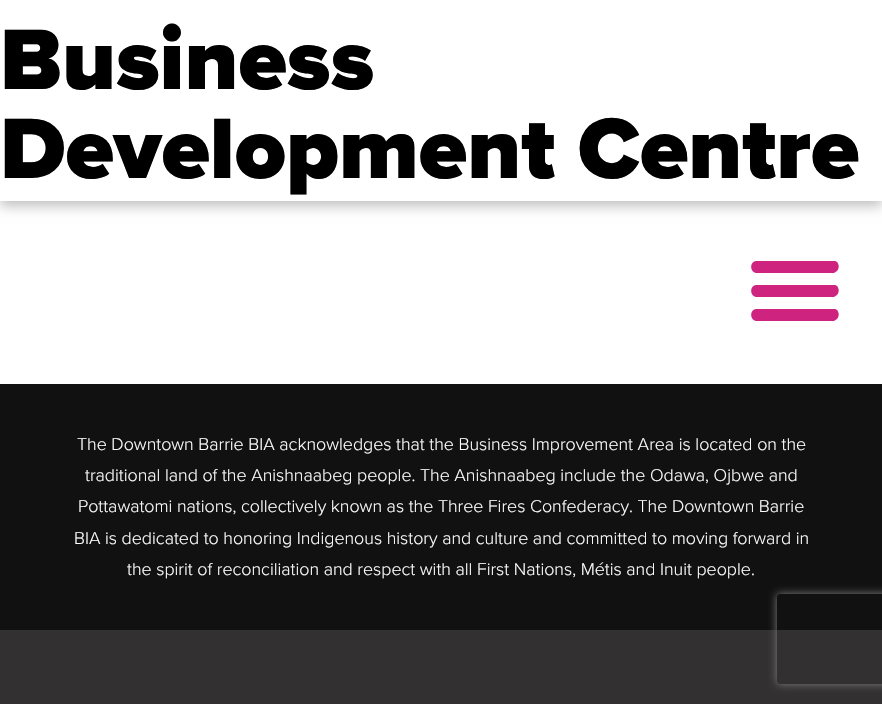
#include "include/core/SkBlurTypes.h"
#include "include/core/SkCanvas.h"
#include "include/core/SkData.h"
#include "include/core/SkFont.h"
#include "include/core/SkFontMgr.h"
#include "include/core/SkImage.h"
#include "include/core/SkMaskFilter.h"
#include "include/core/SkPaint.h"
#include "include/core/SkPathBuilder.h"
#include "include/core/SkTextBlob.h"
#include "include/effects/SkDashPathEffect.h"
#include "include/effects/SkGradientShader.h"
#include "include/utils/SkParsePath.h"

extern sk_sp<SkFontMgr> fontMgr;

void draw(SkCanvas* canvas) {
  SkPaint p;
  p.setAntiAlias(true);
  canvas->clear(SK_ColorWHITE);
  p.setColor(SkColorSetARGB(64, 0, 0, 0));
  p.setMaskFilter(SkMaskFilter::MakeBlur(kNormal_SkBlurStyle, 6));
  canvas->drawRect(SkRect::MakeLTRB(0, 5, 882, 206), p);
  p.setMaskFilter(nullptr);
  p.setColor(SK_ColorWHITE);
  canvas->drawRect(SkRect::MakeLTRB(0, 0, 882, 201), p);
  p.setColor(SkColorSetRGB(206, 36, 128));
  canvas->drawPath(SkPathBuilder().moveTo(757, 273).lineTo(834, 273).lineTo(837, 271).cubicTo(840, 268, 839, 262, 835, 261).lineTo(756, 261).cubicTo(749, 262, 750, 273, 757, 273).close().moveTo(757, 297).lineTo(834, 297).lineTo(837, 295).cubicTo(840, 292, 839, 286, 835, 285).lineTo(756, 285).cubicTo(749, 286, 750, 297, 757, 297).close().moveTo(757, 321).lineTo(834, 321).lineTo(837, 319).cubicTo(840, 316, 839, 310, 835, 309).lineTo(756, 309).cubicTo(749, 310, 750, 321, 757, 321).close().detach(), p);
  p.setColor(SkColorSetRGB(17, 17, 17));
  canvas->drawRect(SkRect::MakeLTRB(0, 384, 882, 630), p);
  p.setColor(SkColorSetRGB(50, 48, 49));
  canvas->drawRect(SkRect::MakeLTRB(0, 630, 882, 704), p);
  canvas->save();
  canvas->clipPath(SkPathBuilder(SkPathFillType::kEvenOdd).moveTo(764, 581).lineTo(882, 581).lineTo(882, 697).lineTo(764, 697).close().moveTo(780, 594).lineTo(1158, 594).cubicTo(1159.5f, 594, 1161, 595.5f, 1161, 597).lineTo(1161, 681).cubicTo(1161, 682.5f, 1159.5f, 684, 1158, 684).lineTo(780, 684).cubicTo(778.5f, 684, 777, 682.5f, 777, 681).lineTo(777, 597).cubicTo(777, 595.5f, 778.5f, 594, 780, 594).close().detach(), true);
  p.setColor(SkColorSetRGB(128, 128, 128));
  p.setMaskFilter(SkMaskFilter::MakeBlur(kNormal_SkBlurStyle, 4));
  canvas->drawRoundRect(SkRect::MakeLTRB(777, 594, 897, 684), 3, 3, p);
  p.setMaskFilter(nullptr);
  canvas->restore();
  SkFont font1(fontMgr->matchFamilyStyle("Proxima Nova", SkFontStyle(900, SkFontStyle::kNormal_Width, SkFontStyle::kUpright_Slant)), 89);
  font1.setSubpixel(true);
  p.setColor(SK_ColorBLACK);
  canvas->drawString("Business", 0, 89, font1, p);
  canvas->drawString("Development Centre", 0, 178, font1, p);
  SkFont font2(fontMgr->matchFamilyStyle("Proxima Nova", SkFontStyle(300, SkFontStyle::kNormal_Width, SkFontStyle::kUpright_Slant)), 17.8f);
  font2.setSubpixel(true);
  p.setColor(SK_ColorWHITE);
  canvas->drawString("The Downtown Barrie BIA acknowledges that the Business Improvement Area is located on the", 77, 450, font2, p);
  canvas->drawString("traditional land of the Anishnaabeg people. The Anishnaabeg include the Odawa, Ojbwe and", 85, 481, font2, p);
  canvas->drawString("Pottawatomi nations, collectively known as the Three Fires Confederacy. The Downtown Barrie", 78, 512, font2, p);
  canvas->drawString("BIA is dedicated to honoring Indigenous history and culture and committed to moving forward in", 74, 544, font2, p);
  canvas->drawString("the spirit of reconciliation and respect with all First Nations, Métis and Inuit people.", 127, 575, font2, p);
}
